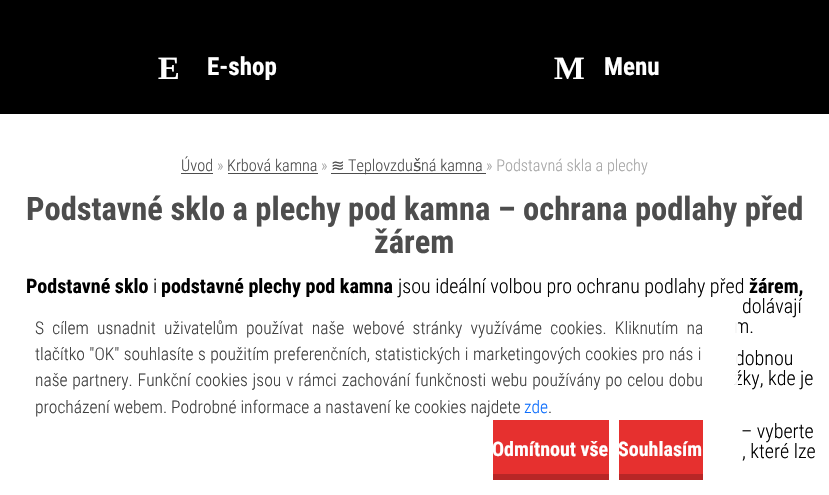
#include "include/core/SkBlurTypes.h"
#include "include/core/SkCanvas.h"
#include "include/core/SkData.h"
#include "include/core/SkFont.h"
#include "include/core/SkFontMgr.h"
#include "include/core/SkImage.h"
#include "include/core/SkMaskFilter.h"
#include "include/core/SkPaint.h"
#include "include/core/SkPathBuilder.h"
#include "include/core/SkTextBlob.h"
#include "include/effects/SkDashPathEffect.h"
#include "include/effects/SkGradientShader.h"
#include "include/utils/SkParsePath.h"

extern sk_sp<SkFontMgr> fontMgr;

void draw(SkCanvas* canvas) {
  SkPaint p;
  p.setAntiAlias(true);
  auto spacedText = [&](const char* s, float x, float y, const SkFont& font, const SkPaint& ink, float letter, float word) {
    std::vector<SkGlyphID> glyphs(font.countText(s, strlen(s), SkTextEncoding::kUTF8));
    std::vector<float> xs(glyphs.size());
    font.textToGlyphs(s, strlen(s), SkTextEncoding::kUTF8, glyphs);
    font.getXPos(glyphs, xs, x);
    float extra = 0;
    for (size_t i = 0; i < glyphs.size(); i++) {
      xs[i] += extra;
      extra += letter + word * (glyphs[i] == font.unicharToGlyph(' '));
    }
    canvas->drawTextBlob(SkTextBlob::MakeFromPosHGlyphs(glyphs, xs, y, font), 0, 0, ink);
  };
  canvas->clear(SK_ColorWHITE);
  p.setColor(SK_ColorBLACK);
  canvas->drawRect(SkRect::MakeLTRB(0, 0, 829, 114), p);
  p.setColor(SkColorSetRGB(77, 77, 77));
  canvas->drawRect(SkRect::MakeLTRB(181, 173, 213, 174), p);
  canvas->drawRect(SkRect::MakeLTRB(228, 173, 318, 174), p);
  canvas->drawRect(SkRect::MakeLTRB(331, 173, 486, 174), p);
  p.setColor(SkColorSetRGB(230, 48, 47));
  canvas->drawRect(SkRect::MakeLTRB(493, 420, 609, 474), p);
  p.setColor(SkColorSetRGB(184, 38, 38));
  canvas->drawRect(SkRect::MakeLTRB(493, 474, 609, 480), p);
  p.setColor(SkColorSetRGB(230, 48, 47));
  canvas->drawRect(SkRect::MakeLTRB(619, 420, 703, 474), p);
  p.setColor(SkColorSetRGB(184, 38, 38));
  canvas->drawRect(SkRect::MakeLTRB(619, 474, 703, 480), p);
  SkFont font1(fontMgr->matchFamilyStyle("Liberation Serif", SkFontStyle::Bold()), 32.5f);
  font1.setSubpixel(true);
  p.setColor(SK_ColorWHITE);
  canvas->drawString("E", 158, 79, font1, p);
  SkFont font2(fontMgr->matchFamilyStyle("Roboto Condensed", SkFontStyle::Bold()), 25);
  font2.setSubpixel(true);
  canvas->drawString("E-shop", 207, 75, font2, p);
  canvas->drawString("M", 554, 79, font1, p);
  canvas->drawString("Menu", 604, 75, font2, p);
  SkFont font3(fontMgr->matchFamilyStyle("Roboto Condensed", SkFontStyle(300, SkFontStyle::kNormal_Width, SkFontStyle::kUpright_Slant)), 16.25f);
  font3.setSubpixel(true);
  p.setColor(SkColorSetRGB(77, 77, 77));
  canvas->drawString("Úvod", 181, 171, font3, p);
  p.setColor(SkColorSetRGB(165, 165, 165));
  canvas->drawString("»", 217, 171, font3, p);
  p.setColor(SkColorSetRGB(77, 77, 77));
  canvas->drawString("Krbová kamna", 227, 171, font3, p);
  p.setColor(SkColorSetRGB(165, 165, 165));
  canvas->drawString("»", 321, 171, font3, p);
  SkFont font4(fontMgr->matchFamilyStyle("DejaVu Sans", SkFontStyle::Normal()), 16.25f);
  font4.setSubpixel(true);
  p.setColor(SkColorSetRGB(77, 77, 77));
  canvas->drawString("≋", 331, 171, font4, p);
  canvas->drawString("Teplovzdu", 348, 171, font3, p);
  canvas->drawString("š", 413, 171, font4, p);
  canvas->drawString("ná kamna", 421, 171, font3, p);
  p.setColor(SkColorSetRGB(165, 165, 165));
  canvas->drawString("» Podstavná skla a plechy", 486, 171, font3, p);
  SkFont font5(fontMgr->matchFamilyStyle("Roboto Condensed", SkFontStyle::Bold()), 32.5f);
  font5.setSubpixel(true);
  p.setColor(SkColorSetRGB(77, 77, 77));
  canvas->drawString("Podstavné sklo a plechy pod kamna – ochrana podlahy před", 26, 220, font5, p);
  canvas->drawString("žárem", 374, 253, font5, p);
  SkFont font6(fontMgr->matchFamilyStyle("Roboto Condensed", SkFontStyle::Bold()), 20);
  font6.setSubpixel(true);
  p.setColor(SK_ColorBLACK);
  canvas->drawString("Podstavné sklo", 26, 293, font6, p);
  SkFont font7(fontMgr->matchFamilyStyle("Roboto Condensed", SkFontStyle(300, SkFontStyle::kNormal_Width, SkFontStyle::kUpright_Slant)), 20);
  font7.setSubpixel(true);
  canvas->drawString("i", 153, 293, font7, p);
  canvas->drawString("podstavné plechy pod kamna", 161, 293, font6, p);
  canvas->drawString("jsou ideální volbou pro ochranu podlahy před", 398, 293, font7, p);
  canvas->drawString("žárem,", 749, 293, font6, p);
  canvas->drawString("dolávají", 742, 313, font7, p);
  canvas->drawString("m.", 734, 333, font7, p);
  canvas->drawString("dobnou", 735, 365, font7, p);
  canvas->drawString("žky, kde je", 734, 385, font7, p);
  canvas->drawString("– vyberte", 741, 438, font7, p);
  canvas->drawString(", které lze", 742, 458, font7, p);
  p.setColor(SkColorSetARGB(242, 255, 255, 255));
  canvas->drawRect(SkRect::MakeLTRB(735, 322, 738, 385), p);
  SkFont font8(fontMgr->matchFamilyStyle("Roboto Condensed", SkFontStyle(300, SkFontStyle::kNormal_Width, SkFontStyle::kUpright_Slant)), 17.5f);
  font8.setSubpixel(true);
  p.setColor(SkColorSetRGB(63, 63, 63));
  spacedText("S cílem usnadnit uživatelům používat naše webové stránky využíváme cookies. Kliknutím na", 35, 334, font8, p, 0, 4.25f);
  spacedText("tlačítko \"OK\" souhlasíte s použitím preferenčních, statistických i marketingových cookies pro nás i", 35, 360, font8, p, 0, 0.5f);
  spacedText("naše partnery. Funkční cookies jsou v rámci zachování funkčnosti webu používány po celou dobu", 35, 386, font8, p, 0, 0.9f);
  canvas->drawString("procházení webem. Podrobné informace a nastavení ke cookies najdete", 35, 413, font8, p);
  p.setColor(SkColorSetRGB(13, 110, 253));
  canvas->drawString("zde", 524, 413, font8, p);
  p.setColor(SkColorSetRGB(63, 63, 63));
  canvas->drawString(".", 548, 413, font8, p);
  p.setColor(SK_ColorWHITE);
  canvas->drawString("Odmítnout vše", 492, 456, font6, p);
  canvas->drawString("Souhlasím", 618, 456, font6, p);
}
